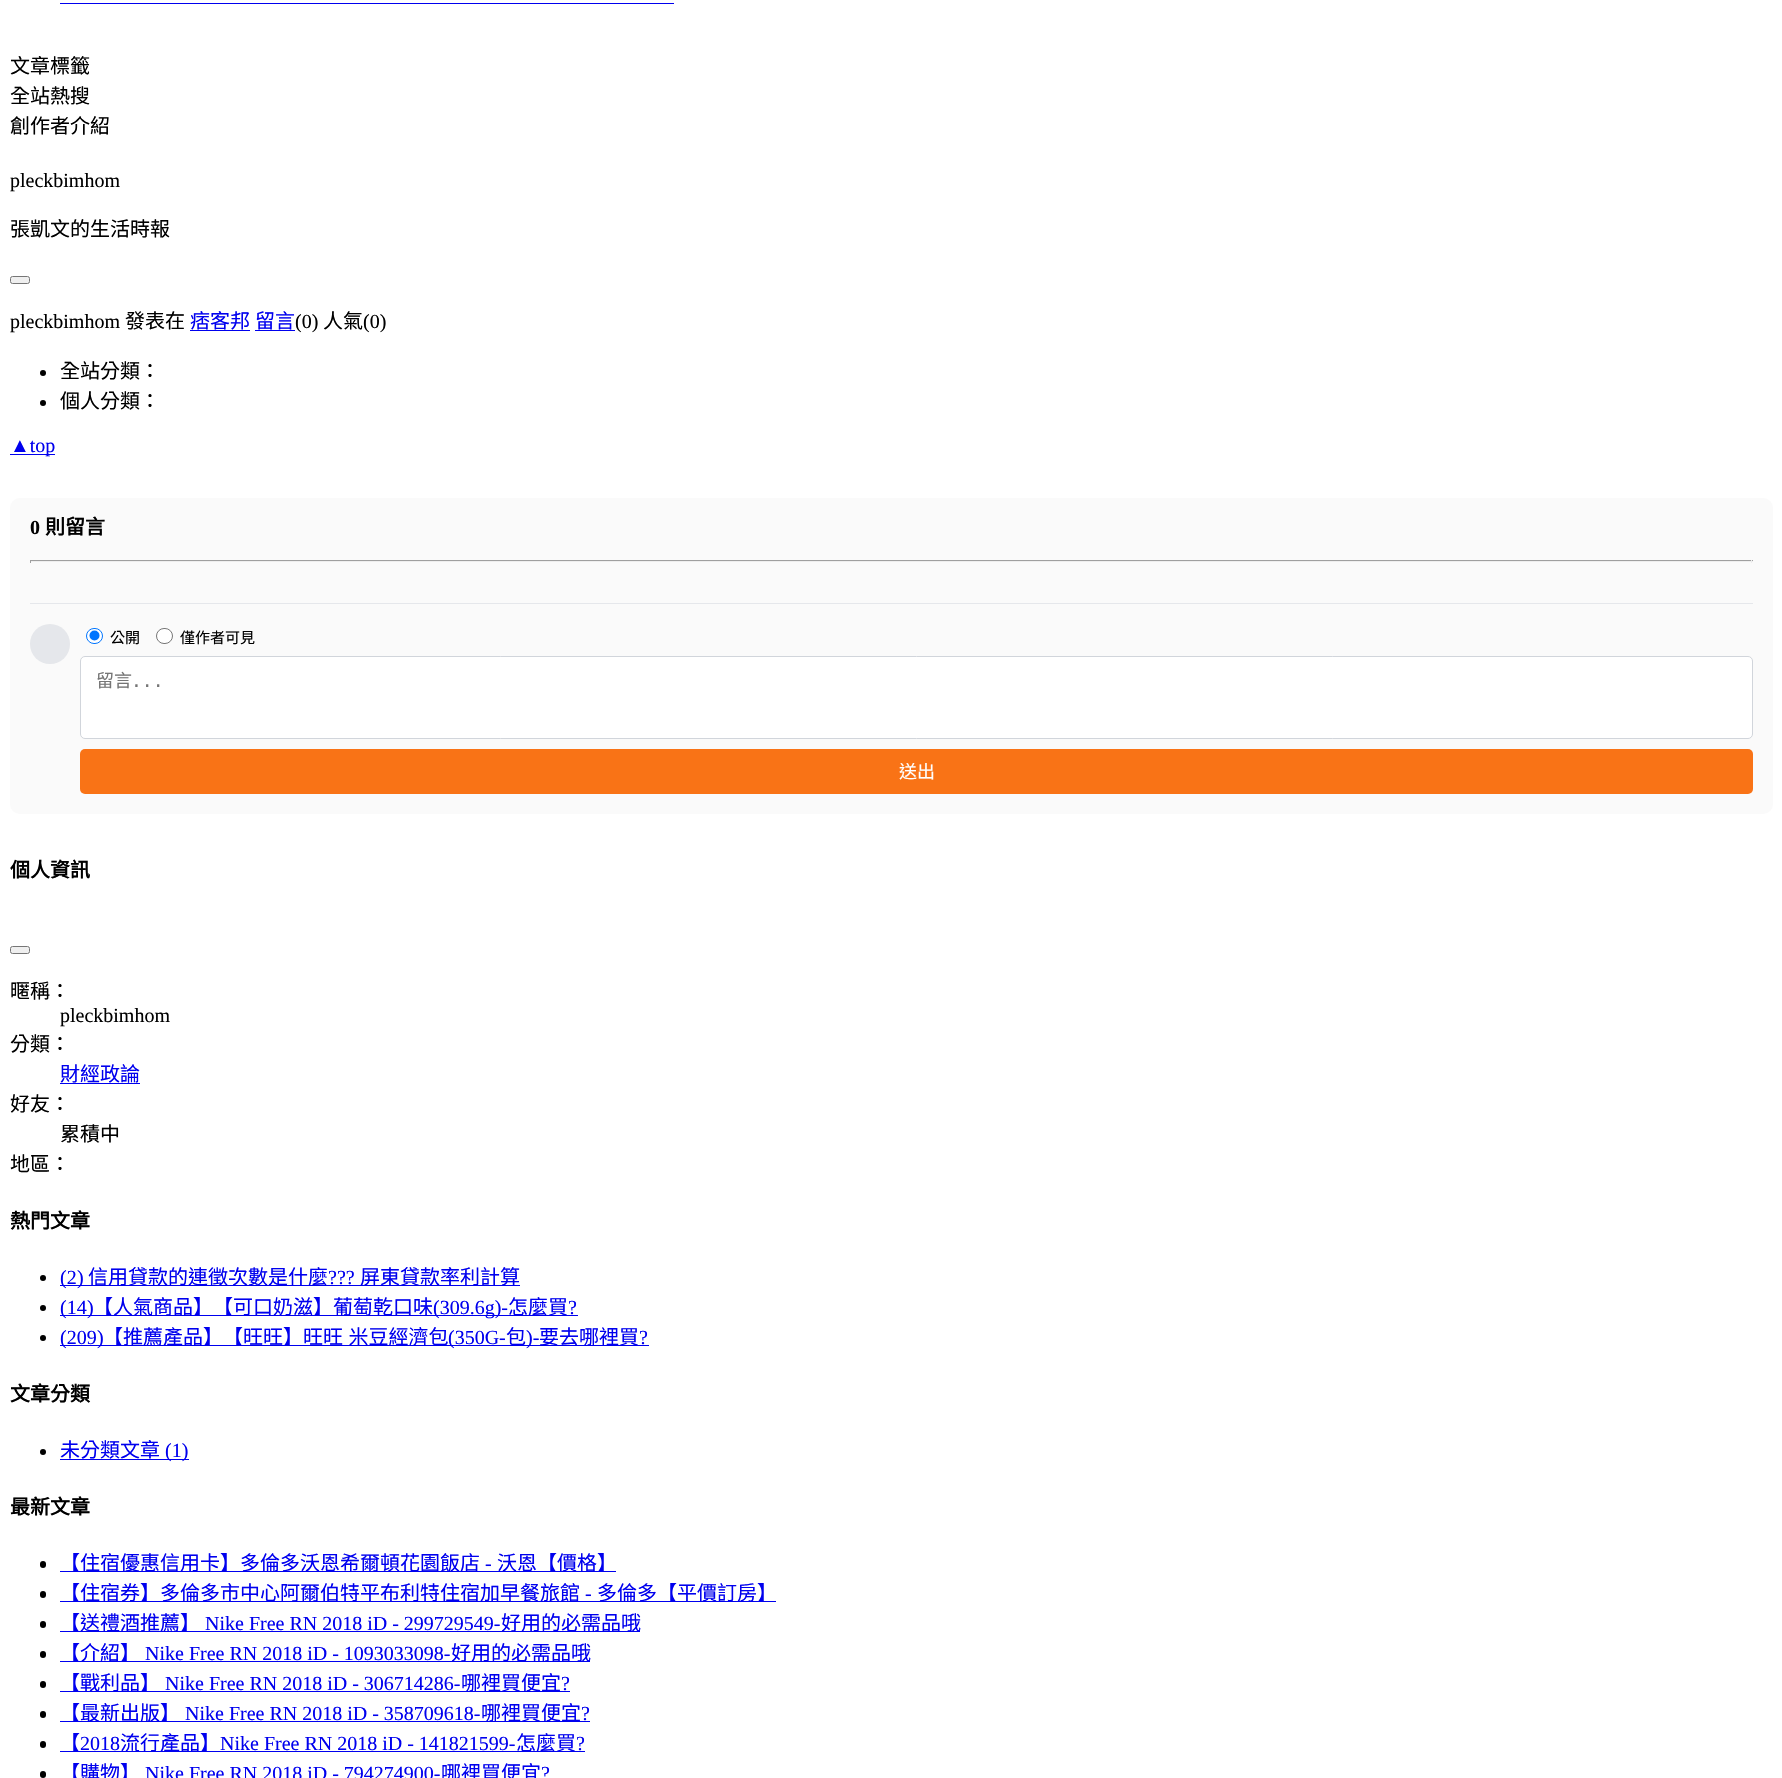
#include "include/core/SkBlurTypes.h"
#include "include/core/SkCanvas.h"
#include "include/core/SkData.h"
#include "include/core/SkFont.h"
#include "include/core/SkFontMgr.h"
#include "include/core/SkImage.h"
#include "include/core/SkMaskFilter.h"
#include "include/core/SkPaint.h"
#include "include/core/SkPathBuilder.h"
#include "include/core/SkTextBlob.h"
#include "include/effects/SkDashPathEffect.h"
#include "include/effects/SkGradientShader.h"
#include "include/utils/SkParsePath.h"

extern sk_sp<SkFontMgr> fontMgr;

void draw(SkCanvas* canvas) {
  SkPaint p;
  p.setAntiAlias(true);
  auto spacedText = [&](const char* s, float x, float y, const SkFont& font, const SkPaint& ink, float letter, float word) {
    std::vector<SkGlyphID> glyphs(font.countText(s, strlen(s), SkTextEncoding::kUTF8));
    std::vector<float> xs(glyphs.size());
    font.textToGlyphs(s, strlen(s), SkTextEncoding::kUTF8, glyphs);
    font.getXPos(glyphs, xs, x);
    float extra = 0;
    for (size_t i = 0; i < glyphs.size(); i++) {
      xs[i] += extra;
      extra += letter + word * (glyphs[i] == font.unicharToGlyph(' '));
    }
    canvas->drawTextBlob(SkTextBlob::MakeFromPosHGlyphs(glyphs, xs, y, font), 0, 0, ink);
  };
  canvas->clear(SK_ColorWHITE);
  p.setColor(SkColorSetRGB(0, 0, 238));
  canvas->drawRect(SkRect::MakeLTRB(60, 3, 674, 4), p);
  p.setColor(SkColorSetRGB(239, 239, 239));
  canvas->drawRoundRect(SkRect::MakeLTRB(10.5f, 276.5f, 29.5f, 283.5f), 2, 2, p);
  p.setStyle(SkPaint::kStroke_Style);
  p.setStrokeWidth(1);
  p.setColor(SkColorSetRGB(118, 118, 118));
  canvas->drawRoundRect(SkRect::MakeLTRB(10.5f, 276.5f, 29.5f, 283.5f), 2, 2, p);
  p.setStyle(SkPaint::kFill_Style);
  p.setColor(SkColorSetRGB(0, 0, 238));
  canvas->drawRect(SkRect::MakeLTRB(190, 330, 250, 331), p);
  canvas->drawRect(SkRect::MakeLTRB(255, 330, 295, 331), p);
  p.setColor(SK_ColorBLACK);
  canvas->drawCircle(43, 373, 3, p);
  canvas->drawCircle(43, 403, 3, p);
  p.setColor(SkColorSetRGB(0, 0, 238));
  canvas->drawRect(SkRect::MakeLTRB(10, 454, 55, 455), p);
  p.setColor(SkColorSetRGB(250, 250, 250));
  canvas->drawRoundRect(SkRect::MakeLTRB(10, 498, 1773, 814), 10, 10, p);
  p.setColor(SkColorSetRGB(159, 159, 159));
  canvas->drawRect(SkRect::MakeLTRB(30, 560, 1753, 561), p);
  p.setColor(SkColorSetRGB(238, 238, 238));
  canvas->drawRect(SkRect::MakeLTRB(1751, 560, 1752, 563), p);
  canvas->drawRect(SkRect::MakeLTRB(30, 561, 1753, 562), p);
  p.setColor(SkColorSetRGB(159, 159, 159));
  canvas->drawRect(SkRect::MakeLTRB(30, 560, 31, 563), p);
  p.setColor(SkColorSetRGB(229, 231, 235));
  canvas->drawRect(SkRect::MakeLTRB(30, 603, 1753, 604), p);
  canvas->drawCircle(50, 644, 20, p);
  p.setColor(SK_ColorWHITE);
  canvas->drawRoundRect(SkRect::MakeLTRB(86.5f, 628.5f, 102.5f, 643.5f), 7.5f, 7.5f, p);
  p.setStyle(SkPaint::kStroke_Style);
  p.setColor(SkColorSetRGB(0, 117, 255));
  canvas->drawRoundRect(SkRect::MakeLTRB(86.5f, 628.5f, 102.5f, 643.5f), 7.5f, 7.5f, p);
  p.setStyle(SkPaint::kFill_Style);
  canvas->drawCircle(94.5f, 635.5f, 5, p);
  p.setColor(SK_ColorWHITE);
  canvas->drawRoundRect(SkRect::MakeLTRB(156.5f, 628.5f, 172.5f, 643.5f), 7.5f, 7.5f, p);
  p.setStyle(SkPaint::kStroke_Style);
  p.setColor(SkColorSetRGB(118, 118, 118));
  canvas->drawRoundRect(SkRect::MakeLTRB(156.5f, 628.5f, 172.5f, 643.5f), 7.5f, 7.5f, p);
  p.setStyle(SkPaint::kFill_Style);
  p.setColor(SK_ColorWHITE);
  canvas->drawRoundRect(SkRect::MakeLTRB(80.5f, 656.5f, 1752.5f, 738.5f), 4.5f, 4.5f, p);
  p.setStyle(SkPaint::kStroke_Style);
  p.setColor(SkColorSetRGB(209, 213, 219));
  canvas->drawRoundRect(SkRect::MakeLTRB(80.5f, 656.5f, 1752.5f, 738.5f), 4.5f, 4.5f, p);
  p.setStyle(SkPaint::kFill_Style);
  p.setColor(SkColorSetRGB(249, 115, 22));
  canvas->drawRoundRect(SkRect::MakeLTRB(80, 749, 1753, 794), 5, 5, p);
  p.setColor(SkColorSetRGB(239, 239, 239));
  canvas->drawRoundRect(SkRect::MakeLTRB(10.5f, 946.5f, 29.5f, 953.5f), 2, 2, p);
  p.setStyle(SkPaint::kStroke_Style);
  p.setColor(SkColorSetRGB(118, 118, 118));
  canvas->drawRoundRect(SkRect::MakeLTRB(10.5f, 946.5f, 29.5f, 953.5f), 2, 2, p);
  p.setStyle(SkPaint::kFill_Style);
  p.setColor(SkColorSetRGB(0, 0, 238));
  canvas->drawRect(SkRect::MakeLTRB(60, 1083, 140, 1084), p);
  p.setColor(SK_ColorBLACK);
  canvas->drawCircle(43, 1278, 3, p);
  p.setColor(SkColorSetRGB(0, 0, 238));
  canvas->drawRect(SkRect::MakeLTRB(60, 1285, 66, 1286), p);
  canvas->drawRect(SkRect::MakeLTRB(66, 1285, 520, 1286), p);
  p.setColor(SK_ColorBLACK);
  canvas->drawCircle(43, 1308, 3, p);
  p.setColor(SkColorSetRGB(0, 0, 238));
  canvas->drawRect(SkRect::MakeLTRB(60, 1315, 66, 1316), p);
  canvas->drawRect(SkRect::MakeLTRB(66, 1315, 578, 1316), p);
  p.setColor(SK_ColorBLACK);
  canvas->drawCircle(43, 1338, 3, p);
  p.setColor(SkColorSetRGB(0, 0, 238));
  canvas->drawRect(SkRect::MakeLTRB(60, 1345, 66, 1346), p);
  canvas->drawRect(SkRect::MakeLTRB(66, 1345, 649, 1346), p);
  p.setColor(SK_ColorBLACK);
  canvas->drawCircle(43, 1452, 3, p);
  p.setColor(SkColorSetRGB(0, 0, 238));
  canvas->drawRect(SkRect::MakeLTRB(60, 1459, 189, 1460), p);
  p.setColor(SK_ColorBLACK);
  canvas->drawRoundRect(SkRect::MakeLTRB(40, 1561, 46, 1568), 3, 3, p);
  p.setColor(SkColorSetRGB(0, 0, 238));
  canvas->drawRect(SkRect::MakeLTRB(60, 1571, 616, 1572), p);
  p.setColor(SK_ColorBLACK);
  canvas->drawRoundRect(SkRect::MakeLTRB(40, 1591, 46, 1598), 3, 3, p);
  p.setColor(SkColorSetRGB(0, 0, 238));
  canvas->drawRect(SkRect::MakeLTRB(60, 1601, 776, 1602), p);
  p.setColor(SK_ColorBLACK);
  canvas->drawRoundRect(SkRect::MakeLTRB(40, 1621, 46, 1628), 3, 3, p);
  p.setColor(SkColorSetRGB(0, 0, 238));
  canvas->drawRect(SkRect::MakeLTRB(60, 1631, 640, 1632), p);
  p.setColor(SK_ColorBLACK);
  canvas->drawRoundRect(SkRect::MakeLTRB(40, 1651, 46, 1658), 3, 3, p);
  p.setColor(SkColorSetRGB(0, 0, 238));
  canvas->drawRect(SkRect::MakeLTRB(60, 1661, 590, 1662), p);
  p.setColor(SK_ColorBLACK);
  canvas->drawRoundRect(SkRect::MakeLTRB(40, 1681, 46, 1688), 3, 3, p);
  p.setColor(SkColorSetRGB(0, 0, 238));
  canvas->drawRect(SkRect::MakeLTRB(60, 1691, 570, 1692), p);
  p.setColor(SK_ColorBLACK);
  canvas->drawRoundRect(SkRect::MakeLTRB(40, 1711, 46, 1718), 3, 3, p);
  p.setColor(SkColorSetRGB(0, 0, 238));
  canvas->drawRect(SkRect::MakeLTRB(60, 1721, 590, 1722), p);
  p.setColor(SK_ColorBLACK);
  canvas->drawRoundRect(SkRect::MakeLTRB(40, 1741, 46, 1748), 3, 3, p);
  p.setColor(SkColorSetRGB(0, 0, 238));
  canvas->drawRect(SkRect::MakeLTRB(60, 1751, 585, 1752), p);
  p.setColor(SK_ColorBLACK);
  canvas->drawRoundRect(SkRect::MakeLTRB(40, 1771, 46, 1778), 3, 3, p);
  SkFont font1(fontMgr->matchFamilyStyle("Noto Sans CJK TC", SkFontStyle::Normal()), 20);
  font1.setSubpixel(true);
  canvas->drawString("文章標籤", 10, 73, font1, p);
  canvas->drawString("全站熱搜", 10, 103, font1, p);
  canvas->drawString("創作者介紹", 10, 133, font1, p);
  SkFont font2(fontMgr->matchFamilyStyle("Liberation Serif", SkFontStyle::Normal()), 20);
  font2.setSubpixel(true);
  canvas->drawString("pleckbimhom", 10, 187, font2, p);
  canvas->drawString("張凱文的生活時報", 10, 236, font1, p);
  canvas->drawString("pleckbimhom", 10, 328, font2, p);
  canvas->drawString("發表在", 125, 328, font1, p);
  p.setColor(SkColorSetRGB(0, 0, 238));
  canvas->drawString("痞客邦", 190, 328, font1, p);
  canvas->drawString("留言", 255, 328, font1, p);
  p.setColor(SK_ColorBLACK);
  canvas->drawString("(0)", 295, 328, font2, p);
  canvas->drawString("人氣", 323, 328, font1, p);
  canvas->drawString("(0)", 363, 328, font2, p);
  canvas->drawString("全站分類：", 60, 378, font1, p);
  canvas->drawString("個人分類：", 60, 408, font1, p);
  p.setColor(SkColorSetRGB(0, 0, 238));
  canvas->drawString("▲top", 10, 452, font2, p);
  SkFont font3(fontMgr->matchFamilyStyle("Liberation Serif", SkFontStyle::Bold()), 20);
  font3.setSubpixel(true);
  p.setColor(SK_ColorBLACK);
  canvas->drawString("0", 30, 534, font3, p);
  SkFont font4(fontMgr->matchFamilyStyle("Noto Sans CJK TC", SkFontStyle::Bold()), 20);
  font4.setSubpixel(true);
  canvas->drawString("則留言", 45, 534, font4, p);
  SkFont font5(fontMgr->matchFamilyStyle("Noto Sans CJK TC", SkFontStyle::Normal()), 15);
  font5.setSubpixel(true);
  canvas->drawString("公開", 110, 643, font5, p);
  canvas->drawString("僅作者可見", 180, 643, font5, p);
  SkFont font6(fontMgr->matchFamilyStyle("Noto Sans CJK TC", SkFontStyle::Normal()), 18);
  font6.setSubpixel(true);
  p.setColor(SkColorSetRGB(117, 117, 117));
  canvas->drawString("留言", 96, 687, font6, p);
  SkFont font7(fontMgr->matchFamilyStyle("DejaVu Sans Mono", SkFontStyle::Normal()), 18);
  font7.setSubpixel(true);
  canvas->drawString("...", 131, 687, font7, p);
  p.setColor(SK_ColorWHITE);
  canvas->drawString("送出", 899, 778, font6, p);
  p.setColor(SK_ColorBLACK);
  canvas->drawString("個人資訊", 10, 877, font4, p);
  canvas->drawString("暱稱：", 10, 998, font1, p);
  canvas->drawString("pleckbimhom", 60, 1022, font2, p);
  canvas->drawString("分類：", 10, 1051, font1, p);
  p.setColor(SkColorSetRGB(0, 0, 238));
  canvas->drawString("財經政論", 60, 1081, font1, p);
  p.setColor(SK_ColorBLACK);
  canvas->drawString("好友：", 10, 1111, font1, p);
  canvas->drawString("累積中", 60, 1141, font1, p);
  canvas->drawString("地區：", 10, 1171, font1, p);
  canvas->drawString("熱門文章", 10, 1228, font4, p);
  p.setColor(SkColorSetRGB(0, 0, 238));
  canvas->drawString("(2", 60, 1284, font2, p);
  canvas->drawString(")", 77, 1284, font2, p);
  canvas->drawString("信用貸款的連徵次數是什麼", 88, 1284, font1, p);
  canvas->drawString("?\077?", 328, 1284, font2, p);
  canvas->drawString("屏東貸款率利計算", 360, 1284, font1, p);
  canvas->drawString("(14", 60, 1314, font2, p);
  canvas->drawString(")", 87, 1314, font2, p);
  canvas->drawString("【人氣商品】【可口奶滋】葡萄乾口味", 93, 1314, font1, p);
  canvas->drawString("(309.6g)-", 433, 1314, font2, p);
  canvas->drawString("怎麼買", 508, 1314, font1, p);
  canvas->drawString("?", 568, 1314, font2, p);
  canvas->drawString("(209", 60, 1344, font2, p);
  canvas->drawString(")", 97, 1344, font2, p);
  spacedText("【推薦產品】【旺旺】旺旺 米豆經濟包", 103, 1344, font1, p, 0, 1);
  canvas->drawString("(350G-", 448, 1344, font2, p);
  canvas->drawString("包", 506, 1344, font1, p);
  canvas->drawString(")-", 526, 1344, font2, p);
  canvas->drawString("要去哪裡買", 539, 1344, font1, p);
  canvas->drawString("?", 639, 1344, font2, p);
  p.setColor(SK_ColorBLACK);
  canvas->drawString("文章分類", 10, 1401, font4, p);
  p.setColor(SkColorSetRGB(0, 0, 238));
  canvas->drawString("未分類文章", 60, 1457, font1, p);
  canvas->drawString("(1)", 165, 1457, font2, p);
  p.setColor(SK_ColorBLACK);
  canvas->drawString("最新文章", 10, 1514, font4, p);
  p.setColor(SkColorSetRGB(0, 0, 238));
  canvas->drawString("【住宿優惠信用卡】多倫多沃恩希爾頓花園飯店", 60, 1570, font1, p);
  canvas->drawString("-", 485, 1570, font2, p);
  canvas->drawString("沃恩【價格】", 497, 1570, font1, p);
  canvas->drawString("【住宿券】多倫多市中心阿爾伯特平布利特住宿加早餐旅館", 60, 1600, font1, p);
  canvas->drawString("-", 585, 1600, font2, p);
  canvas->drawString("多倫多【平價訂房】", 597, 1600, font1, p);
  canvas->drawString("【送禮酒推薦】", 60, 1630, font1, p);
  canvas->drawString("Nike Free RN 2018 iD - 299729549-", 205, 1630, font2, p);
  canvas->drawString("好用的必需品哦", 501, 1630, font1, p);
  canvas->drawString("【介紹】", 60, 1660, font1, p);
  canvas->drawString("Nike Free RN 2018 iD - 1093033098-", 145, 1660, font2, p);
  canvas->drawString("好用的必需品哦", 451, 1660, font1, p);
  canvas->drawString("【戰利品】", 60, 1690, font1, p);
  canvas->drawString("Nike Free RN 2018 iD - 306714286-", 165, 1690, font2, p);
  canvas->drawString("哪裡買便宜", 461, 1690, font1, p);
  canvas->drawString("?", 561, 1690, font2, p);
  canvas->drawString("【最新出版】", 60, 1720, font1, p);
  canvas->drawString("Nike Free RN 2018 iD - 358709618-", 185, 1720, font2, p);
  canvas->drawString("哪裡買便宜", 481, 1720, font1, p);
  canvas->drawString("?", 581, 1720, font2, p);
  canvas->drawString("【", 60, 1750, font1, p);
  canvas->drawString("2018", 80, 1750, font2, p);
  canvas->drawString("流行產品】", 120, 1750, font1, p);
  canvas->drawString("Nike Free RN 2018 iD - 141821599-", 220, 1750, font2, p);
  canvas->drawString("怎麼買", 516, 1750, font1, p);
  canvas->drawString("?", 576, 1750, font2, p);
  canvas->drawString("【購物】", 60, 1780, font1, p);
  canvas->drawString("Nike Free RN 2018 iD - 794274900-", 145, 1780, font2, p);
  canvas->drawString("哪裡買便宜", 441, 1780, font1, p);
  canvas->drawString("?", 541, 1780, font2, p);
}
